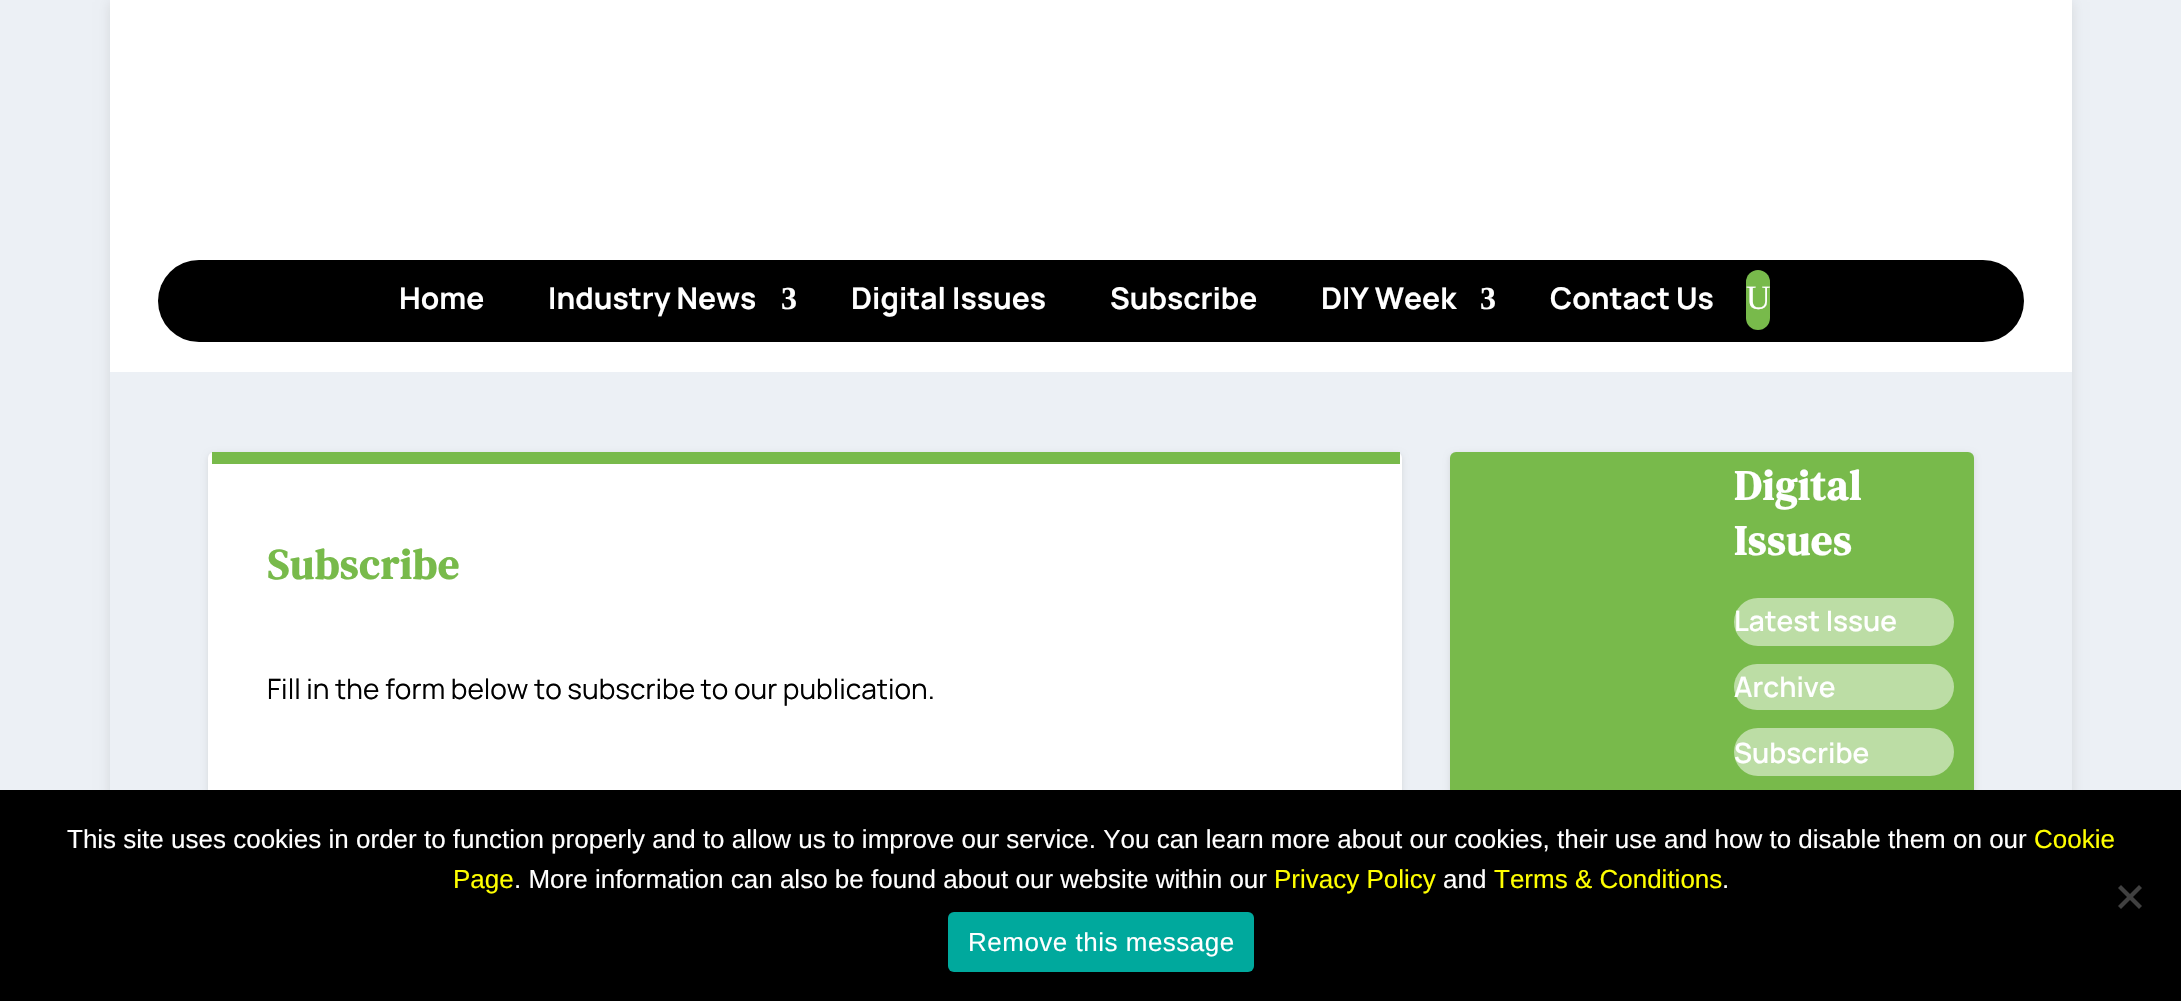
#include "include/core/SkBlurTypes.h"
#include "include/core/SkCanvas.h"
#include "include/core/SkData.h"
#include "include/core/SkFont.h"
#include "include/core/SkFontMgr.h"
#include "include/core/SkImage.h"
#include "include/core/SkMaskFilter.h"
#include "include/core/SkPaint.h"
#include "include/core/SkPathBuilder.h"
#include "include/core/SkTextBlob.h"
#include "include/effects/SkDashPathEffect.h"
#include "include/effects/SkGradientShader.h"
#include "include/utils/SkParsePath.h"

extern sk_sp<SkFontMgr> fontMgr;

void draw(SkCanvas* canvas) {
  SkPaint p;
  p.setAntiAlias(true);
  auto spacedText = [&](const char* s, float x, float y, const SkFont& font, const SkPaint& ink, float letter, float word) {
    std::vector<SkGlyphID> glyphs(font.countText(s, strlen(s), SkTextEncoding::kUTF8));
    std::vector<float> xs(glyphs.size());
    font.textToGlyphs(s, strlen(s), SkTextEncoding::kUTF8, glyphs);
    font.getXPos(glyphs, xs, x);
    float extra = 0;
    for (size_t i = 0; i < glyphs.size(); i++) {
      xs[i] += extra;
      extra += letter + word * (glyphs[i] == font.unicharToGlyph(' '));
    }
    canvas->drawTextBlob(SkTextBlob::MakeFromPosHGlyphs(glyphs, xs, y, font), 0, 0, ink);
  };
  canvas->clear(SkColorSetRGB(236, 240, 245));
  canvas->save();
  canvas->clipPath(SkPathBuilder(SkPathFillType::kEvenOdd).moveTo(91, 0).lineTo(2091, 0).lineTo(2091, 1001).lineTo(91, 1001).close().moveTo(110, 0).lineTo(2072, 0).lineTo(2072, 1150).lineTo(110, 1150).close().detach(), true);
  p.setColor(SkColorSetARGB(26, 0, 0, 0));
  p.setMaskFilter(SkMaskFilter::MakeBlur(kNormal_SkBlurStyle, 6));
  canvas->drawRect(SkRect::MakeLTRB(110, 2, 2072, 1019), p);
  p.setMaskFilter(nullptr);
  canvas->restore();
  p.setColor(SK_ColorWHITE);
  canvas->drawRect(SkRect::MakeLTRB(110, 0, 2072, 372), p);
  p.setColor(SK_ColorBLACK);
  canvas->drawRoundRect(SkRect::MakeLTRB(158, 260, 2024, 342), 41, 41, p);
  p.setColor(SkColorSetRGB(120, 186, 75));
  canvas->drawRoundRect(SkRect::MakeLTRB(1746, 270, 1770, 330), 12, 12, p);
  p.setColor(SkColorSetARGB(26, 0, 0, 0));
  p.setMaskFilter(SkMaskFilter::MakeBlur(kNormal_SkBlurStyle, 3));
  canvas->drawRoundRect(SkRect::MakeLTRB(208, 454, 1402, 832), 6, 6, p);
  p.setMaskFilter(nullptr);
  p.setColor(SK_ColorWHITE);
  canvas->drawRoundRect(SkRect::MakeLTRB(208, 452, 1402, 830), 6, 6, p);
  p.setColor(SkColorSetRGB(120, 186, 75));
  canvas->drawRect(SkRect::MakeLTRB(212, 452, 1400, 464), p);
  p.setColor(SkColorSetARGB(26, 0, 0, 0));
  p.setMaskFilter(SkMaskFilter::MakeBlur(kNormal_SkBlurStyle, 3));
  canvas->drawRoundRect(SkRect::MakeLTRB(1450, 454, 1974, 804), 6, 6, p);
  p.setMaskFilter(nullptr);
  p.setColor(SkColorSetRGB(120, 186, 75));
  canvas->drawRoundRect(SkRect::MakeLTRB(1450, 452, 1974, 802), 6, 6, p);
  p.setColor(SkColorSetRGB(188, 221, 165));
  canvas->drawRoundRect(SkRect::MakeLTRB(1734, 598, 1954, 646), 24, 24, p);
  canvas->drawRoundRect(SkRect::MakeLTRB(1734, 664, 1954, 710), 23, 23, p);
  canvas->drawRoundRect(SkRect::MakeLTRB(1734, 728, 1954, 776), 24, 24, p);
  p.setColor(SK_ColorBLACK);
  canvas->drawRect(SkRect::MakeLTRB(0, 790, 2181, 1001), p);
  p.setColor(SkColorSetRGB(64, 64, 64));
  canvas->drawPath(SkPathBuilder().moveTo(2139, 885).lineTo(2142, 888).lineTo(2121, 909).lineTo(2118, 906).close().detach(), p);
  canvas->drawPath(SkPathBuilder().moveTo(2118, 888).lineTo(2121, 885).lineTo(2142, 906).lineTo(2139, 909).close().detach(), p);
  p.setColor(SkColorSetRGB(0, 169, 157));
  canvas->drawRoundRect(SkRect::MakeLTRB(948, 912, 1254, 972), 6, 6, p);
  SkFont font1(fontMgr->matchFamilyStyle("Manrope", SkFontStyle::Bold()), 30);
  font1.setSubpixel(true);
  p.setColor(SK_ColorWHITE);
  canvas->drawString("Home", 399, 309, font1, p);
  canvas->drawString("Industry News", 548, 309, font1, p);
  SkFont font2(fontMgr->matchFamilyStyle("Liberation Serif", SkFontStyle::Bold()), 32);
  font2.setSubpixel(true);
  canvas->drawString("3", 781, 309, font2, p);
  canvas->drawString("Digital Issues", 851, 309, font1, p);
  canvas->drawString("Subscribe", 1110, 309, font1, p);
  canvas->drawString("DIY Week", 1321, 309, font1, p);
  canvas->drawString("3", 1480, 309, font2, p);
  canvas->drawString("Contact Us", 1550, 309, font1, p);
  SkFont font3(fontMgr->matchFamilyStyle("Liberation Serif", SkFontStyle::Normal()), 34);
  font3.setSubpixel(true);
  canvas->drawString("U", 1746, 309, font3, p);
  SkFont font4(fontMgr->matchFamilyStyle("DM Serif Text", SkFontStyle::Bold()), 42);
  font4.setSubpixel(true);
  p.setColor(SkColorSetRGB(120, 186, 75));
  spacedText("Subscribe", 267, 579, font4, p, 1, 0);
  SkFont font5(fontMgr->matchFamilyStyle("Manrope", SkFontStyle::Normal()), 28);
  font5.setSubpixel(true);
  p.setColor(SK_ColorBLACK);
  canvas->drawString("Fill in the form below to subscribe to our publication.", 267, 699, font5, p);
  p.setColor(SK_ColorWHITE);
  spacedText("Digital", 1734, 500, font4, p, 1, 0);
  spacedText("Issues", 1734, 555, font4, p, 1, 0);
  SkFont font6(fontMgr->matchFamilyStyle("Manrope", SkFontStyle(600, SkFontStyle::kNormal_Width, SkFontStyle::kUpright_Slant)), 28);
  font6.setSubpixel(true);
  canvas->drawString("Latest Issue", 1734, 631, font6, p);
  canvas->drawString("Archive", 1734, 697, font6, p);
  canvas->drawString("Subscribe", 1734, 763, font6, p);
  SkFont font7(fontMgr->matchFamilyStyle("Liberation Sans", SkFontStyle::Normal()), 26);
  font7.setSubpixel(true);
  canvas->drawString("This site uses cookies in order to function properly and to allow us to improve our service. You can learn more about our cookies, their use and how to disable them on our", 67, 848, font7, p);
  p.setColor(SkColorSetRGB(255, 255, 0));
  canvas->drawString("Cookie", 2034, 848, font7, p);
  canvas->drawString("Page", 453, 888, font7, p);
  p.setColor(SK_ColorWHITE);
  canvas->drawString(". More information can also be found about our website within our", 514, 888, font7, p);
  p.setColor(SkColorSetRGB(255, 255, 0));
  canvas->drawString("Privacy Policy", 1274, 888, font7, p);
  p.setColor(SK_ColorWHITE);
  canvas->drawString("and", 1443, 888, font7, p);
  p.setColor(SkColorSetRGB(255, 255, 0));
  canvas->drawString("Terms & Conditions", 1494, 888, font7, p);
  p.setColor(SK_ColorWHITE);
  canvas->drawString(".", 1722, 888, font7, p);
  spacedText("Remove this message", 968, 951, font7, p, 0.5f, 0);
}
